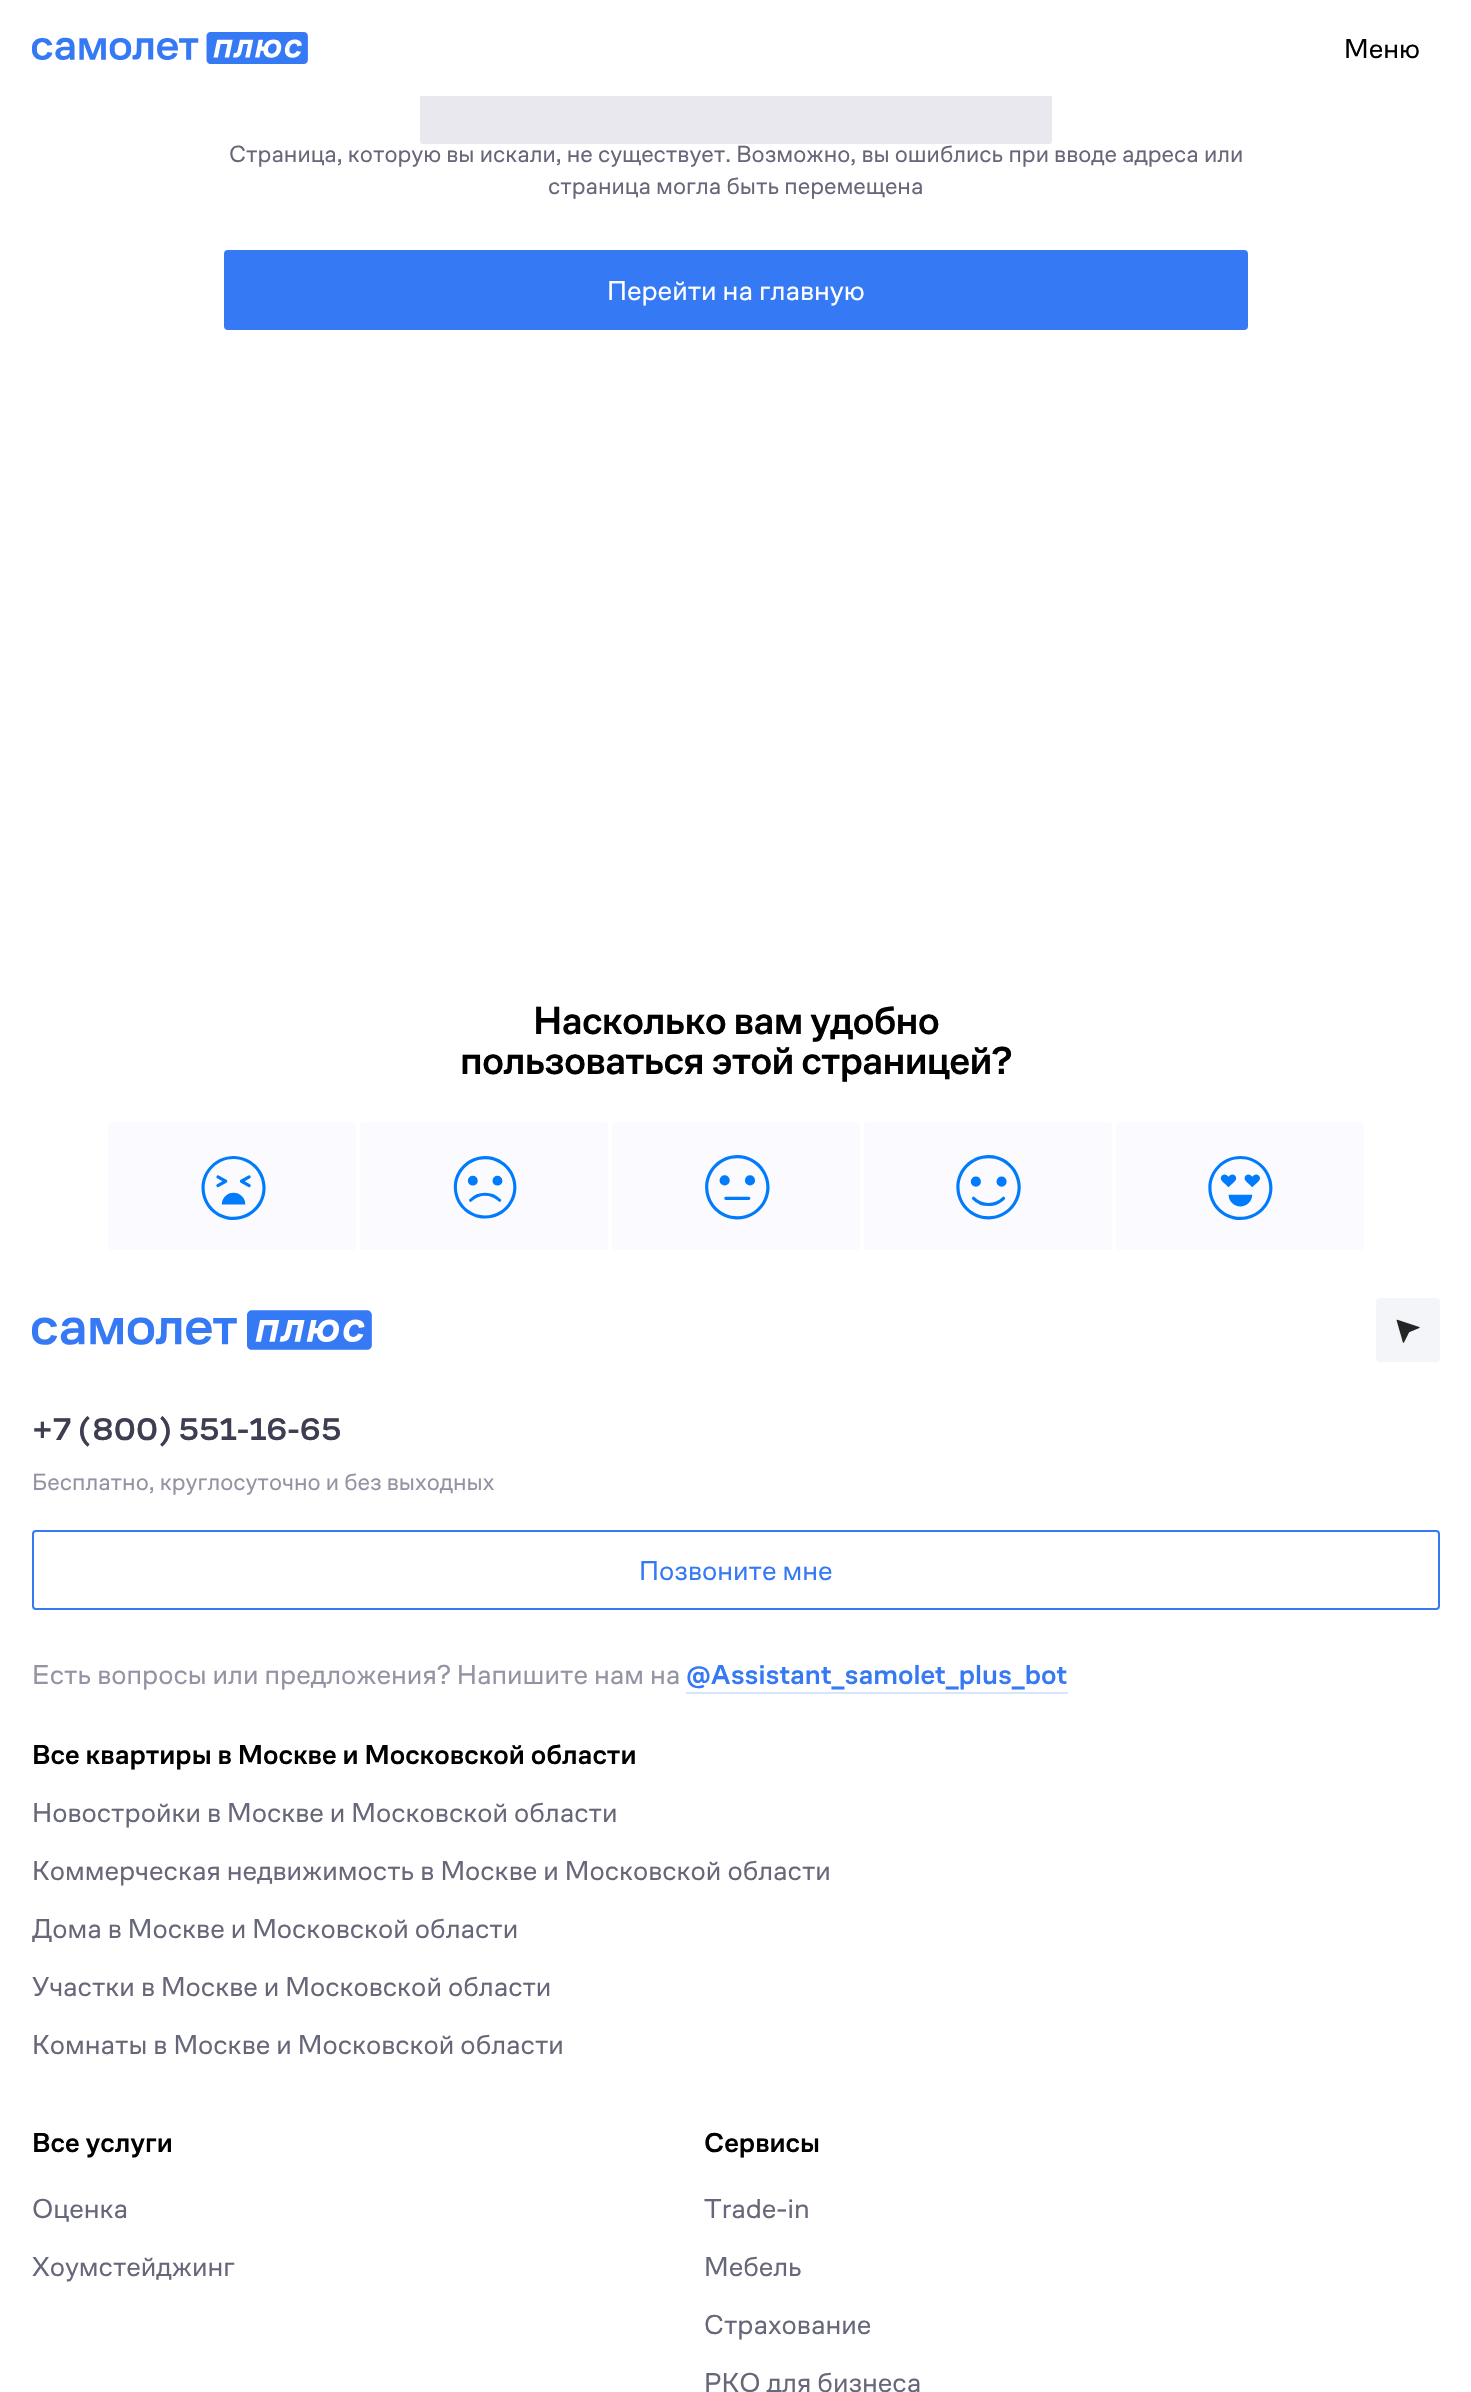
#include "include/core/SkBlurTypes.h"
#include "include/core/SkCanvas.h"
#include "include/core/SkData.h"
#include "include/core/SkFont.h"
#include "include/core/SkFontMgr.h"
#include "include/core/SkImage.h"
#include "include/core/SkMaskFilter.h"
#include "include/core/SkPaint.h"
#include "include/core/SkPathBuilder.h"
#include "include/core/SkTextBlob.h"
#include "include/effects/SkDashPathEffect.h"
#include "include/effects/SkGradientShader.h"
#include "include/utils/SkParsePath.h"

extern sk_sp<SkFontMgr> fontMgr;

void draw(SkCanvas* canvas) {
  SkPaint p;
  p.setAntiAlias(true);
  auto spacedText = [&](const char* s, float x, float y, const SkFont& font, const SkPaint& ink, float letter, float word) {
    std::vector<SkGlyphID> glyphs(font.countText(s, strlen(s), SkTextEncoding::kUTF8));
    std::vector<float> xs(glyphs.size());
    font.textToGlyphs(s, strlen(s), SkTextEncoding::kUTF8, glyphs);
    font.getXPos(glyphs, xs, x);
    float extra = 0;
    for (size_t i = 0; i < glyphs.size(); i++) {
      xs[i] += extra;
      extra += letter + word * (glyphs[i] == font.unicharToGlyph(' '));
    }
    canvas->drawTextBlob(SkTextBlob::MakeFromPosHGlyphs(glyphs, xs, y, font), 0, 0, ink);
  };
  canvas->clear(SK_ColorWHITE);
  canvas->drawImageRect(SkImages::DeferredFromEncodedData(SkData::MakeFromFileName("images/1.png")), SkRect::MakeLTRB(32, 32, 308, 64), SkSamplingOptions());
  canvas->drawImageRect(SkImages::DeferredFromEncodedData(SkData::MakeFromFileName("images/2.png")), SkRect::MakeLTRB(420, 96, 1052, 144), SkSamplingOptions());
  p.setColor(SkColorSetRGB(53, 121, 245));
  canvas->drawRoundRect(SkRect::MakeLTRB(225, 251, 1247, 329), 3, 3, p);
  p.setStyle(SkPaint::kStroke_Style);
  p.setStrokeWidth(2);
  canvas->drawRoundRect(SkRect::MakeLTRB(225, 251, 1247, 329), 3, 3, p);
  p.setStyle(SkPaint::kFill_Style);
  p.setColor(SkColorSetRGB(250, 250, 255));
  canvas->drawRoundRect(SkRect::MakeLTRB(108, 1122, 356, 1250), 4, 4, p);
  canvas->drawImageRect(SkImages::DeferredFromEncodedData(SkData::MakeFromFileName("images/3.png")), SkRect::MakeLTRB(201, 1156, 266, 1220), SkSamplingOptions());
  canvas->drawRoundRect(SkRect::MakeLTRB(360, 1122, 608, 1250), 4, 4, p);
  canvas->drawImageRect(SkImages::DeferredFromEncodedData(SkData::MakeFromFileName("images/4.png")), SkRect::MakeLTRB(453, 1156, 517, 1219), SkSamplingOptions());
  canvas->drawRoundRect(SkRect::MakeLTRB(612, 1122, 860, 1250), 4, 4, p);
  canvas->drawImageRect(SkImages::DeferredFromEncodedData(SkData::MakeFromFileName("images/5.png")), SkRect::MakeLTRB(705, 1155, 770, 1220), SkSamplingOptions());
  canvas->drawRoundRect(SkRect::MakeLTRB(864, 1122, 1112, 1250), 4, 4, p);
  canvas->drawImageRect(SkImages::DeferredFromEncodedData(SkData::MakeFromFileName("images/6.png")), SkRect::MakeLTRB(956, 1155, 1021, 1220), SkSamplingOptions());
  canvas->drawRoundRect(SkRect::MakeLTRB(1116, 1122, 1364, 1250), 4, 4, p);
  canvas->drawImageRect(SkImages::DeferredFromEncodedData(SkData::MakeFromFileName("images/7.png")), SkRect::MakeLTRB(1208, 1156, 1273, 1220), SkSamplingOptions());
  canvas->drawImageRect(SkImages::DeferredFromEncodedData(SkData::MakeFromFileName("images/8.png")), SkRect::MakeLTRB(32, 1310, 372, 1350), SkSamplingOptions());
  p.setColor(SkColorSetRGB(244, 245, 249));
  canvas->drawRoundRect(SkRect::MakeLTRB(1376, 1298, 1440, 1362), 4, 4, p);
  canvas->drawImageRect(SkImages::DeferredFromEncodedData(SkData::MakeFromFileName("images/9.png")), SkRect::MakeLTRB(1396, 1319, 1420, 1343), SkSamplingOptions());
  p.setStyle(SkPaint::kStroke_Style);
  p.setColor(SkColorSetRGB(53, 121, 245));
  canvas->drawRoundRect(SkRect::MakeLTRB(33, 1531, 1439, 1609), 3, 3, p);
  p.setStyle(SkPaint::kFill_Style);
  p.setColor(SkColorSetRGB(215, 228, 253));
  canvas->drawRect(SkRect::MakeLTRB(686, 1692, 1068, 1694), p);
  SkFont font1(fontMgr->matchFamilyStyle("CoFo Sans", SkFontStyle::Normal()), 28);
  font1.setSubpixel(true);
  p.setColor(SK_ColorBLACK);
  canvas->drawString("Меню", 1344, 58, font1, p);
  SkFont font2(fontMgr->matchFamilyStyle("CoFo Sans", SkFontStyle::Normal()), 24);
  font2.setSubpixel(true);
  p.setColor(SkColorSetRGB(103, 103, 122));
  canvas->drawString("Страница, которую вы искали, не существует. Возможно, вы ошиблись при вводе адреса или", 229, 162, font2, p);
  canvas->drawString("страница могла быть перемещена", 548, 194, font2, p);
  p.setColor(SK_ColorWHITE);
  canvas->drawString("Перейти на главную", 607, 300, font1, p);
  SkFont font3(fontMgr->matchFamilyStyle("CoFo Sans", SkFontStyle(500, SkFontStyle::kNormal_Width, SkFontStyle::kUpright_Slant)), 40);
  font3.setSubpixel(true);
  p.setColor(SK_ColorBLACK);
  spacedText("Насколько вам удобно", 533, 1034, font3, p, -0.8f, 0);
  spacedText("пользоваться этой страницей?", 460, 1074, font3, p, -0.8f, 0);
  SkFont font4(fontMgr->matchFamilyStyle("CoFo Sans", SkFontStyle(500, SkFontStyle::kNormal_Width, SkFontStyle::kUpright_Slant)), 32);
  font4.setSubpixel(true);
  p.setColor(SkColorSetRGB(62, 62, 82));
  canvas->drawString("+7 (800) 551-16-65", 32, 1440, font4, p);
  p.setColor(SkColorSetRGB(147, 147, 163));
  canvas->drawString("Бесплатно, круглосуточно и без выходных", 32, 1490, font2, p);
  p.setColor(SkColorSetRGB(53, 121, 245));
  canvas->drawString("Позвоните мне", 639, 1580, font1, p);
  p.setColor(SkColorSetRGB(147, 147, 163));
  canvas->drawString("Есть вопросы или предложения? Напишите нам на", 32, 1684, font1, p);
  SkFont font5(fontMgr->matchFamilyStyle("CoFo Sans", SkFontStyle(500, SkFontStyle::kNormal_Width, SkFontStyle::kUpright_Slant)), 28);
  font5.setSubpixel(true);
  p.setColor(SkColorSetRGB(53, 121, 245));
  canvas->drawString("@Assistant_samolet_plus_bot", 686, 1684, font5, p);
  p.setColor(SK_ColorBLACK);
  canvas->drawString("Все квартиры в Москве и Московской области", 32, 1764, font5, p);
  p.setColor(SkColorSetRGB(103, 103, 122));
  canvas->drawString("Новостройки в Москве и Московской области", 32, 1822, font1, p);
  canvas->drawString("Коммерческая недвижимость в Москве и Московской области", 32, 1880, font1, p);
  canvas->drawString("Дома в Москве и Московской области", 32, 1938, font1, p);
  canvas->drawString("Участки в Москве и Московской области", 32, 1996, font1, p);
  canvas->drawString("Комнаты в Москве и Московской области", 32, 2054, font1, p);
  p.setColor(SK_ColorBLACK);
  canvas->drawString("Все услуги", 32, 2152, font5, p);
  p.setColor(SkColorSetRGB(103, 103, 122));
  canvas->drawString("Оценка", 32, 2218, font1, p);
  canvas->drawString("Хоумстейджинг", 32, 2276, font1, p);
  p.setColor(SK_ColorBLACK);
  canvas->drawString("Сервисы", 704, 2152, font5, p);
  p.setColor(SkColorSetRGB(103, 103, 122));
  canvas->drawString("Trade-in", 704, 2218, font1, p);
  canvas->drawString("Мебель", 704, 2276, font1, p);
  canvas->drawString("Страхование", 704, 2334, font1, p);
  canvas->drawString("РКО для бизнеса", 704, 2392, font1, p);
}
